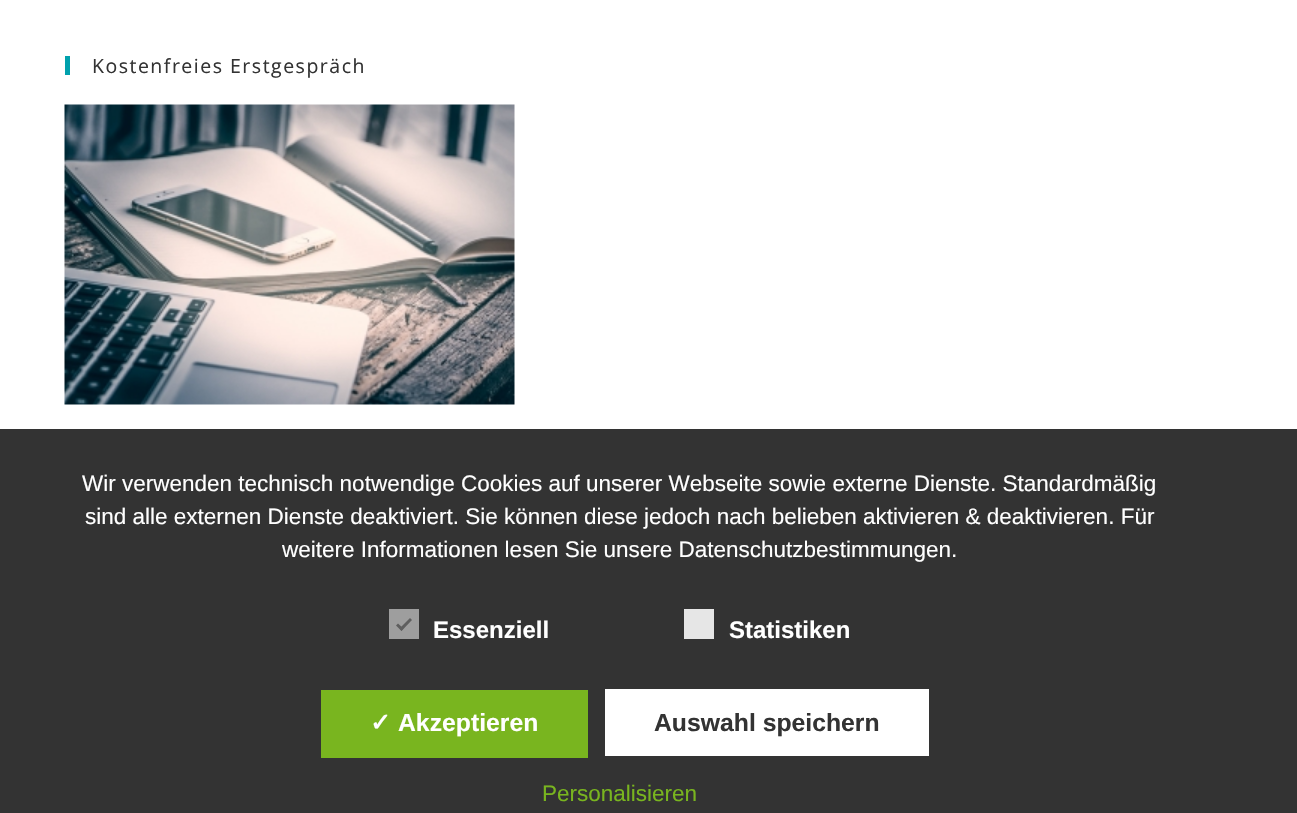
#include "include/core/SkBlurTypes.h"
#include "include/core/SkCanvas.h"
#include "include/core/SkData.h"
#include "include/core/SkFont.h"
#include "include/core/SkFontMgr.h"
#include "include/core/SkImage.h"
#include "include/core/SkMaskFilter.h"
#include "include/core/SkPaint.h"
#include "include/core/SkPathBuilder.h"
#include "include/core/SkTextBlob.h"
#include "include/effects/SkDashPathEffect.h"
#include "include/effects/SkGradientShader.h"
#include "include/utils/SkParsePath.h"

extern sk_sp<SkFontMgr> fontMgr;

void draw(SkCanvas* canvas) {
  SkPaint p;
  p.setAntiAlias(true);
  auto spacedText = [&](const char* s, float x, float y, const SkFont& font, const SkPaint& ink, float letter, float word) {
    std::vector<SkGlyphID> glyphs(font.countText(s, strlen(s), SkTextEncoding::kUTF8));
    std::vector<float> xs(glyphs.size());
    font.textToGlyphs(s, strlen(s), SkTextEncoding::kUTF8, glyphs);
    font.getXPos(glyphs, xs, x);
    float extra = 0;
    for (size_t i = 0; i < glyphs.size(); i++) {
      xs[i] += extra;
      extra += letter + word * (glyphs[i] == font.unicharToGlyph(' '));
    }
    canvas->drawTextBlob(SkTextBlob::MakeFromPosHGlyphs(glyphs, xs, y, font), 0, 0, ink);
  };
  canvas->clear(SK_ColorWHITE);
  p.setColor(SkColorSetRGB(0, 161, 173));
  canvas->drawRect(SkRect::MakeLTRB(65, 56, 70, 75), p);
  canvas->drawImageRect(SkImages::DeferredFromEncodedData(SkData::MakeFromFileName("images/1.png")), SkRect::MakeLTRB(64, 104, 515, 405), SkSamplingOptions());
  p.setColor(SkColorSetRGB(51, 51, 51));
  canvas->drawRect(SkRect::MakeLTRB(0, 429, 1297, 813), p);
  p.setColor(SkColorSetRGB(158, 158, 158));
  canvas->drawRect(SkRect::MakeLTRB(389, 609, 419, 639), p);
  p.setColor(SkColorSetRGB(94, 94, 94));
  canvas->drawPath(SkPathBuilder().moveTo(410, 618).lineTo(412, 620).lineTo(401.5f, 631).lineTo(399.5f, 628.5f).close().detach(), p);
  canvas->drawPath(SkPathBuilder().moveTo(398, 623.5f).lineTo(403.5f, 628.5f).lineTo(401.5f, 631).lineTo(396, 625.5f).close().detach(), p);
  p.setColor(SkColorSetRGB(230, 230, 230));
  canvas->drawRect(SkRect::MakeLTRB(684, 609, 714, 639), p);
  p.setColor(SkColorSetRGB(121, 181, 31));
  canvas->drawRect(SkRect::MakeLTRB(321, 690, 588, 758), p);
  p.setColor(SK_ColorWHITE);
  canvas->drawRect(SkRect::MakeLTRB(605, 689, 929, 756), p);
  SkFont font1(fontMgr->matchFamilyStyle("Open Sans", SkFontStyle::Normal()), 19.5f);
  font1.setSubpixel(true);
  p.setColor(SkColorSetRGB(51, 51, 51));
  spacedText("Kostenfreies Erstgespräch", 92, 73, font1, p, 1.5f, 0);
  SkFont font2(fontMgr->matchFamilyStyle("Liberation Sans", SkFontStyle::Normal()), 22.5f);
  font2.setSubpixel(true);
  p.setColor(SK_ColorWHITE);
  canvas->drawString("Wir verwenden technisch notwendige Cookies auf unserer Webseite sowie externe Dienste. Standardmäßig", 82, 491, font2, p);
  canvas->drawString("sind alle externen Dienste deaktiviert. Sie können diese jedoch nach belieben aktivieren & deaktivieren. Für", 85, 524, font2, p);
  canvas->drawString("weitere Informationen lesen Sie unsere Datenschutzbestimmungen.", 282, 557, font2, p);
  SkFont font3(fontMgr->matchFamilyStyle("Liberation Sans", SkFontStyle::Bold()), 24);
  font3.setSubpixel(true);
  canvas->drawString("Essenziell", 433, 638, font3, p);
  canvas->drawString("Statistiken", 729, 638, font3, p);
  SkFont font4(fontMgr->matchFamilyStyle("DejaVu Sans", SkFontStyle::Bold()), 24.75f);
  font4.setSubpixel(true);
  canvas->drawString("✓", 370, 731, font4, p);
  SkFont font5(fontMgr->matchFamilyStyle("Liberation Sans", SkFontStyle::Bold()), 24.75f);
  font5.setSubpixel(true);
  canvas->drawString("Akzeptieren", 398, 731, font5, p);
  p.setColor(SkColorSetRGB(51, 51, 51));
  canvas->drawString("Auswahl speichern", 654, 731, font5, p);
  p.setColor(SkColorSetRGB(121, 181, 31));
  canvas->drawString("Personalisieren", 542, 801, font2, p);
}
